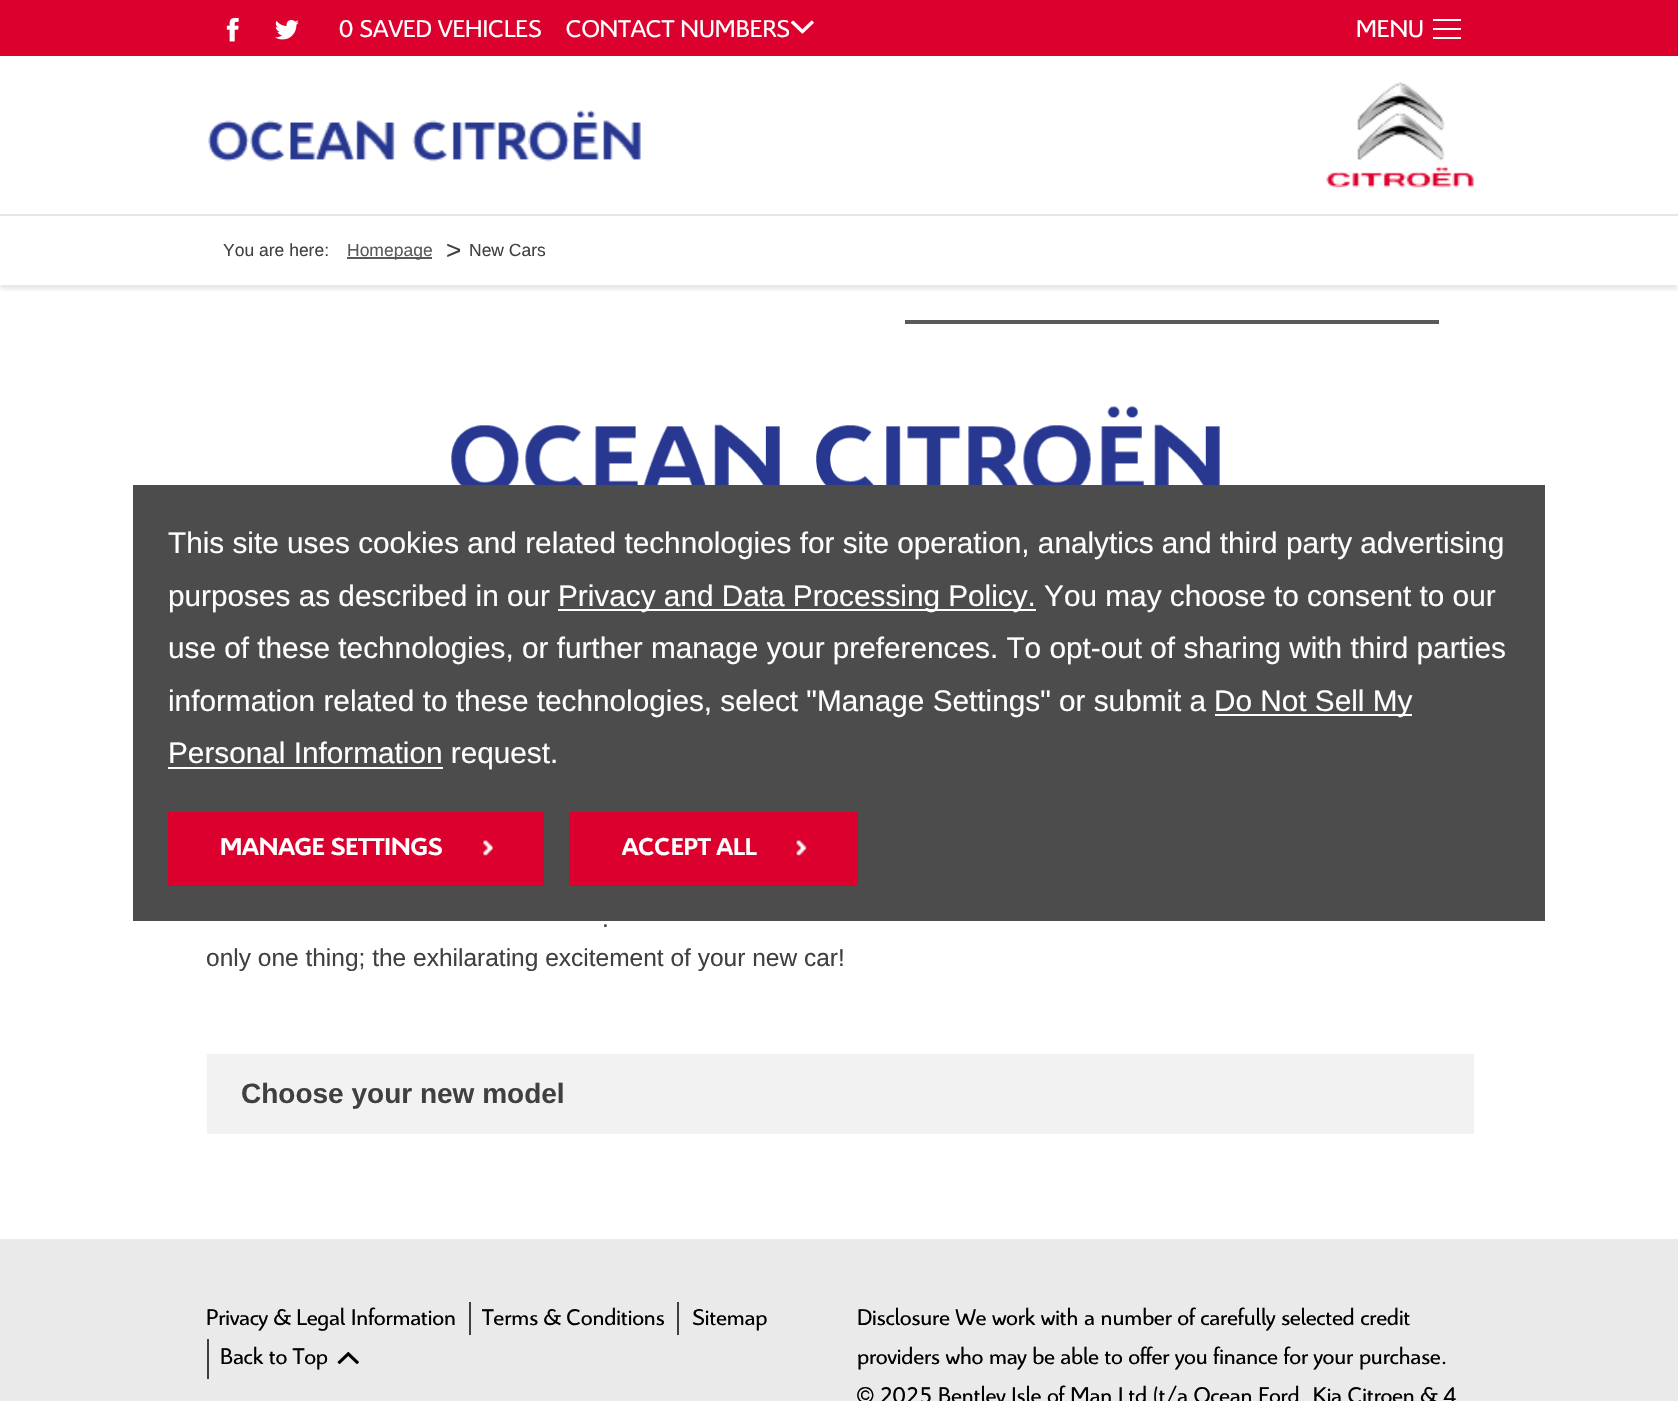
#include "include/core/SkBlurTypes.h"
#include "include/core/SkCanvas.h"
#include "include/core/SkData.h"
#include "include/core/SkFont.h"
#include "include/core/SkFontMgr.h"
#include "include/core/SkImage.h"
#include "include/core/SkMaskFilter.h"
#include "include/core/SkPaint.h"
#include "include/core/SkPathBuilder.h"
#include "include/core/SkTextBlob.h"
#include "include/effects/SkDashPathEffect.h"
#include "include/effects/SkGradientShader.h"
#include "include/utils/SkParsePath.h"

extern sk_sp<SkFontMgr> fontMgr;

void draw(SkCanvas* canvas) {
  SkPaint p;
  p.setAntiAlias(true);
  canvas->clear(SK_ColorWHITE);
  p.setColor(SkColorSetRGB(220, 0, 46));
  canvas->drawRect(SkRect::MakeLTRB(0, 0, 1678, 56), p);
  canvas->drawImageRect(SkImages::DeferredFromEncodedData(SkData::MakeFromFileName("images/1.png")), SkRect::MakeLTRB(226, 17, 239, 42), SkSamplingOptions());
  canvas->drawImageRect(SkImages::DeferredFromEncodedData(SkData::MakeFromFileName("images/2.png")), SkRect::MakeLTRB(275, 20, 299, 40), SkSamplingOptions());
  canvas->drawImageRect(SkImages::DeferredFromEncodedData(SkData::MakeFromFileName("images/3.png")), SkRect::MakeLTRB(790, 20, 814, 34), SkSamplingOptions());
  p.setColor(SK_ColorWHITE);
  canvas->drawRect(SkRect::MakeLTRB(1433, 28, 1461, 30), p);
  canvas->drawRect(SkRect::MakeLTRB(1433, 19, 1461, 21), p);
  canvas->drawRect(SkRect::MakeLTRB(1433, 37, 1461, 39), p);
  canvas->drawImageRect(SkImages::DeferredFromEncodedData(SkData::MakeFromFileName("images/4.png")), SkRect::MakeLTRB(208, 110, 641, 162), SkSamplingOptions());
  canvas->drawImageRect(SkImages::DeferredFromEncodedData(SkData::MakeFromFileName("images/5.png")), SkRect::MakeLTRB(1326, 82, 1474, 188), SkSamplingOptions());
  canvas->save();
  canvas->clipRect(SkRect::MakeLTRB(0, 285, 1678, 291));
  p.setColor(SkColorSetARGB(26, 0, 0, 0));
  p.setMaskFilter(SkMaskFilter::MakeBlur(kNormal_SkBlurStyle, 2.5f));
  canvas->drawRect(SkRect::MakeLTRB(0, 217, 1678, 289), p);
  p.setMaskFilter(nullptr);
  canvas->restore();
  p.setColor(SkColorSetRGB(230, 230, 230));
  canvas->drawRect(SkRect::MakeLTRB(0, 214, 1678, 216), p);
  p.setColor(SkColorSetRGB(90, 90, 90));
  canvas->drawRect(SkRect::MakeLTRB(347, 257, 432, 259), p);
  canvas->drawImageRect(SkImages::DeferredFromEncodedData(SkData::MakeFromFileName("images/6.png")), SkRect::MakeLTRB(451, 406, 1220, 485), SkSamplingOptions());
  p.setColor(SkColorSetRGB(89, 89, 89));
  canvas->drawRect(SkRect::MakeLTRB(905, 320, 1439, 324), p);
  p.setColor(SkColorSetRGB(242, 242, 242));
  canvas->drawRect(SkRect::MakeLTRB(207, 1054, 1474, 1134), p);
  p.setColor(SkColorSetRGB(234, 234, 234));
  canvas->drawRect(SkRect::MakeLTRB(0, 1239, 1678, 1401), p);
  p.setColor(SkColorSetRGB(64, 64, 64));
  canvas->drawRect(SkRect::MakeLTRB(469, 1302, 471, 1335), p);
  canvas->drawRect(SkRect::MakeLTRB(677, 1302, 679, 1335), p);
  canvas->drawRect(SkRect::MakeLTRB(207, 1339, 209, 1379), p);
  canvas->drawImageRect(SkImages::DeferredFromEncodedData(SkData::MakeFromFileName("images/7.png")), SkRect::MakeLTRB(337, 1351, 359, 1365), SkSamplingOptions());
  p.setColor(SkColorSetRGB(75, 76, 75));
  canvas->drawRect(SkRect::MakeLTRB(133, 485, 1545, 921), p);
  p.setColor(SK_ColorWHITE);
  canvas->drawRect(SkRect::MakeLTRB(558, 609, 1036, 611), p);
  canvas->drawRect(SkRect::MakeLTRB(1215, 714, 1412, 716), p);
  canvas->drawRect(SkRect::MakeLTRB(168, 767, 443, 769), p);
  p.setColor(SkColorSetRGB(220, 0, 46));
  canvas->drawRect(SkRect::MakeLTRB(168, 812, 544, 886), p);
  canvas->drawImageRect(SkImages::DeferredFromEncodedData(SkData::MakeFromFileName("images/8.png")), SkRect::MakeLTRB(483, 840, 494, 856), SkSamplingOptions());
  canvas->drawRect(SkRect::MakeLTRB(569, 812, 858, 886), p);
  canvas->drawImageRect(SkImages::DeferredFromEncodedData(SkData::MakeFromFileName("images/9.png")), SkRect::MakeLTRB(796, 840, 807, 856), SkSamplingOptions());
  SkFont font1(fontMgr->matchFamilyStyle("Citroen", SkFontStyle::Normal()), 26.25f);
  font1.setSubpixel(true);
  p.setColor(SK_ColorWHITE);
  canvas->drawString("0 SAVED VEHICLES", 339, 37, font1, p);
  canvas->drawString("CONTACT NUMBERS", 566, 37, font1, p);
  canvas->drawString("MENU", 1356, 37, font1, p);
  SkFont font2(fontMgr->matchFamilyStyle("Liberation Sans", SkFontStyle::Normal()), 17.5f);
  font2.setSubpixel(true);
  p.setColor(SkColorSetRGB(64, 64, 64));
  canvas->drawString("You are here:", 223, 256, font2, p);
  p.setColor(SkColorSetRGB(90, 90, 90));
  canvas->drawString("Homepage", 347, 256, font2, p);
  SkFont font3(fontMgr->matchFamilyStyle("Liberation Sans", SkFontStyle::Normal()), 26.25f);
  font3.setSubpixel(true);
  p.setColor(SkColorSetRGB(64, 64, 64));
  canvas->drawString(">", 446, 259, font3, p);
  canvas->drawString("New Cars", 469, 256, font2, p);
  SkFont font4(fontMgr->matchFamilyStyle("Liberation Sans", SkFontStyle::Normal()), 24.5f);
  font4.setSubpixel(true);
  canvas->drawString(".", 602, 927, font4, p);
  canvas->drawString("only one thing; the exhilarating excitement of your new car!", 206, 966, font4, p);
  SkFont font5(fontMgr->matchFamilyStyle("Liberation Sans", SkFontStyle::Bold()), 28);
  font5.setSubpixel(true);
  canvas->drawString("Choose your new model", 241, 1103, font5, p);
  SkFont font6(fontMgr->matchFamilyStyle("Citroen", SkFontStyle::Normal()), 24.5f);
  font6.setSubpixel(true);
  p.setColor(SK_ColorBLACK);
  canvas->drawString("Privacy & Legal Information", 206, 1325, font6, p);
  canvas->drawString("Terms & Conditions", 482, 1325, font6, p);
  canvas->drawString("Sitemap", 692, 1325, font6, p);
  canvas->drawString("Back to Top", 220, 1364, font6, p);
  canvas->drawString("Disclosure We work with a number of carefully selected credit", 857, 1325, font6, p);
  canvas->drawString("providers who may be able to offer you finance for your purchase.", 857, 1364, font6, p);
  canvas->drawString("© 2025 Bentley Isle of Man Ltd (t/a Ocean Ford, Kia Citroen & 4", 857, 1403, font6, p);
  SkFont font7(fontMgr->matchFamilyStyle("Liberation Sans", SkFontStyle::Normal()), 29.75f);
  font7.setSubpixel(true);
  p.setColor(SK_ColorWHITE);
  canvas->drawString("This site uses cookies and related technologies for site operation, analytics and third party advertising", 168, 553, font7, p);
  canvas->drawString("purposes as described in our", 168, 606, font7, p);
  canvas->drawString("Privacy and Data Processing Policy. You may choose to consent to our", 558, 606, font7, p);
  canvas->drawString("use of these technologies, or further manage your preferences. To opt-out of sharing with third parties", 168, 658, font7, p);
  canvas->drawString("information related to these technologies, select \"Manage Settings\" or submit a", 168, 711, font7, p);
  canvas->drawString("Do Not Sell My", 1214, 711, font7, p);
  canvas->drawString("Personal Information request.", 168, 763, font7, p);
  SkFont font8(fontMgr->matchFamilyStyle("Citroen", SkFontStyle::Bold()), 26.25f);
  font8.setSubpixel(true);
  canvas->drawString("MANAGE SETTINGS", 220, 855, font8, p);
  canvas->drawString("ACCEPT ALL", 622, 855, font8, p);
}
